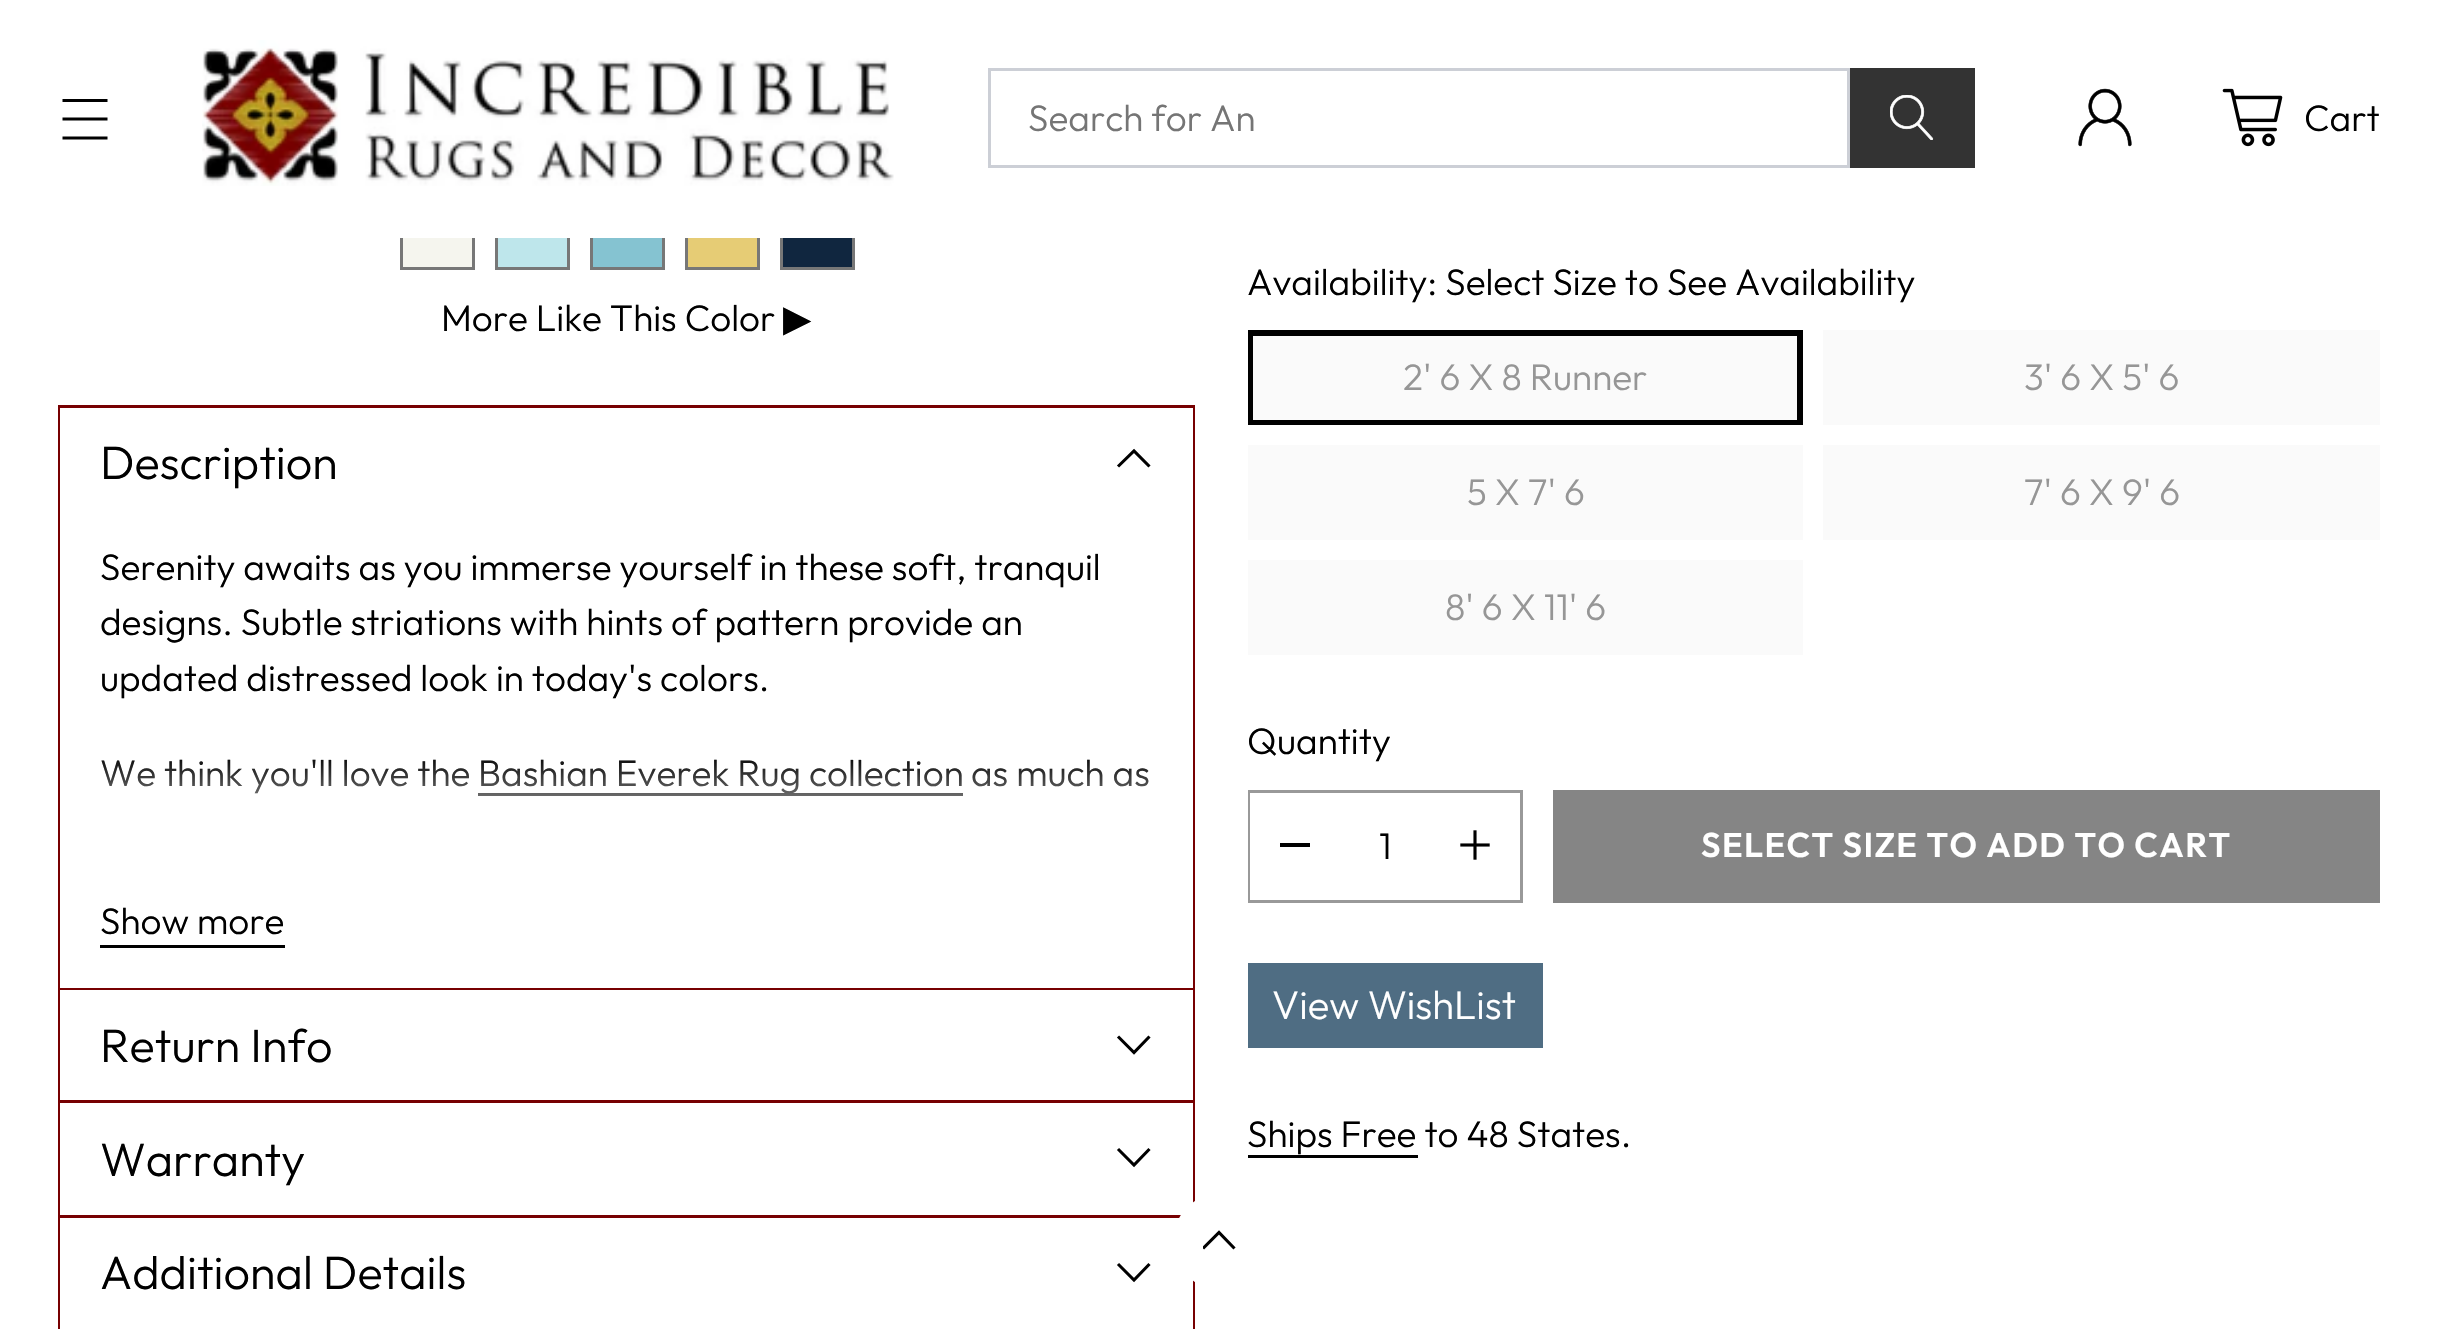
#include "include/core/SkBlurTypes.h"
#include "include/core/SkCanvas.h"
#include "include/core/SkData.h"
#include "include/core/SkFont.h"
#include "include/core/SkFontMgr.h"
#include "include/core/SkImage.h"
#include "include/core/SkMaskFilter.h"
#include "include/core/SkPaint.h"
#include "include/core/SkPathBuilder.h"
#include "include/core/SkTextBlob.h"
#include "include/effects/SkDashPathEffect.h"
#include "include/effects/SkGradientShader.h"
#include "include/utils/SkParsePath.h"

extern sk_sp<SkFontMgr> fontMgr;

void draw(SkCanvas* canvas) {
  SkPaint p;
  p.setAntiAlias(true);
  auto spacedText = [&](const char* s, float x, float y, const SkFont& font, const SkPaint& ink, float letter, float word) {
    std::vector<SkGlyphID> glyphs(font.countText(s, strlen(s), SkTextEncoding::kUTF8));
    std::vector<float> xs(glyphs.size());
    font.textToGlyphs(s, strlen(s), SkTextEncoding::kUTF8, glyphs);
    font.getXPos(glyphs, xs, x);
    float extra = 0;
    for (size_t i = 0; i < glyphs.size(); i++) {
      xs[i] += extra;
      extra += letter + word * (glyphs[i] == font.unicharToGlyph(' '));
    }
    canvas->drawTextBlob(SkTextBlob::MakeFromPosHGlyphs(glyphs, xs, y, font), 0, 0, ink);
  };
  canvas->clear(SK_ColorWHITE);
  p.setColor(SkColorSetRGB(245, 245, 238));
  canvas->drawRect(SkRect::MakeLTRB(403, 238, 472, 267), p);
  p.setStyle(SkPaint::kStroke_Style);
  p.setStrokeWidth(3);
  p.setColor(SkColorSetRGB(119, 119, 119));
  canvas->drawRect(SkRect::MakeLTRB(401.5f, 216.5f, 473.5f, 268.5f), p);
  p.setStyle(SkPaint::kFill_Style);
  p.setColor(SkColorSetRGB(190, 230, 235));
  canvas->drawRect(SkRect::MakeLTRB(498, 238, 567, 267), p);
  p.setStyle(SkPaint::kStroke_Style);
  p.setColor(SkColorSetRGB(119, 119, 119));
  canvas->drawRect(SkRect::MakeLTRB(496.5f, 216.5f, 568.5f, 268.5f), p);
  p.setStyle(SkPaint::kFill_Style);
  p.setColor(SkColorSetRGB(133, 195, 209));
  canvas->drawRect(SkRect::MakeLTRB(593, 238, 662, 267), p);
  p.setStyle(SkPaint::kStroke_Style);
  p.setColor(SkColorSetRGB(119, 119, 119));
  canvas->drawRect(SkRect::MakeLTRB(591.5f, 216.5f, 663.5f, 268.5f), p);
  p.setStyle(SkPaint::kFill_Style);
  p.setColor(SkColorSetRGB(230, 204, 117));
  canvas->drawRect(SkRect::MakeLTRB(688, 238, 757, 267), p);
  p.setStyle(SkPaint::kStroke_Style);
  p.setColor(SkColorSetRGB(119, 119, 119));
  canvas->drawRect(SkRect::MakeLTRB(686.5f, 216.5f, 758.5f, 268.5f), p);
  p.setStyle(SkPaint::kFill_Style);
  p.setColor(SkColorSetRGB(16, 38, 63));
  canvas->drawRect(SkRect::MakeLTRB(783, 238, 852, 267), p);
  p.setStyle(SkPaint::kStroke_Style);
  p.setColor(SkColorSetRGB(119, 119, 119));
  canvas->drawRect(SkRect::MakeLTRB(781.5f, 216.5f, 853.5f, 268.5f), p);
  p.setStyle(SkPaint::kFill_Style);
  p.setColor(SK_ColorWHITE);
  canvas->drawRect(SkRect::MakeLTRB(400, 215, 855, 238), p);
  p.setStyle(SkPaint::kStroke_Style);
  p.setStrokeWidth(3.2f);
  p.setColor(SK_ColorBLACK);
  canvas->drawPath(SkPathBuilder().moveTo(62.5f, 119).lineTo(107.5f, 119).moveTo(62.5f, 100.5f).lineTo(107.5f, 100.5f).moveTo(62.5f, 138).lineTo(107.5f, 138).detach(), p);
  canvas->drawImageRect(SkImages::DeferredFromEncodedData(SkData::MakeFromFileName("images/1.png")), SkRect::MakeLTRB(202, 40, 894, 186), SkSamplingOptions());
  p.setStrokeWidth(3);
  p.setColor(SkColorSetRGB(204, 207, 214));
  canvas->drawRect(SkRect::MakeLTRB(989.5f, 69.5f, 1848.5f, 166.5f), p);
  p.setStyle(SkPaint::kFill_Style);
  p.setColor(SkColorSetRGB(51, 51, 51));
  canvas->drawRect(SkRect::MakeLTRB(1850, 68, 1975, 168), p);
  canvas->drawImageRect(SkImages::DeferredFromEncodedData(SkData::MakeFromFileName("images/2.png")), SkRect::MakeLTRB(1890, 95, 1934, 140), SkSamplingOptions());
  canvas->drawImageRect(SkImages::DeferredFromEncodedData(SkData::MakeFromFileName("images/3.png")), SkRect::MakeLTRB(2078, 88, 2132, 147), SkSamplingOptions());
  canvas->drawImageRect(SkImages::DeferredFromEncodedData(SkData::MakeFromFileName("images/4.png")), SkRect::MakeLTRB(2222, 88, 2283, 147), SkSamplingOptions());
  p.setStyle(SkPaint::kStroke_Style);
  p.setColor(SkColorSetRGB(119, 0, 1));
  canvas->drawRect(SkRect::MakeLTRB(59.5f, 406.5f, 1193.5f, 991.5f), p);
  p.setStyle(SkPaint::kFill_Style);
  p.setColor(SK_ColorWHITE);
  canvas->drawRect(SkRect::MakeLTRB(60, 408, 1193, 988), p);
  p.setStyle(SkPaint::kStroke_Style);
  p.setStrokeWidth(3.1f);
  p.setColor(SK_ColorBLACK);
  canvas->drawPath(SkPathBuilder().moveTo(1118, 466.5f).lineTo(1134, 451).lineTo(1149.5f, 466.5f).detach(), p);
  p.setStyle(SkPaint::kFill_Style);
  canvas->drawRect(SkRect::MakeLTRB(478, 793, 963, 796), p);
  canvas->drawRect(SkRect::MakeLTRB(100, 945, 285, 948), p);
  p.setStyle(SkPaint::kStroke_Style);
  p.setStrokeWidth(3);
  p.setColor(SkColorSetRGB(119, 0, 1));
  canvas->drawRect(SkRect::MakeLTRB(59.5f, 989.5f, 1193.5f, 1103.5f), p);
  p.setStyle(SkPaint::kFill_Style);
  p.setColor(SK_ColorWHITE);
  canvas->drawRect(SkRect::MakeLTRB(60, 990, 1193, 1100), p);
  p.setStyle(SkPaint::kStroke_Style);
  p.setStrokeWidth(3.1f);
  p.setColor(SK_ColorBLACK);
  canvas->drawPath(SkPathBuilder().moveTo(1118, 1036.5f).lineTo(1134, 1052.5f).lineTo(1149.5f, 1036.5f).detach(), p);
  p.setStrokeWidth(3);
  p.setColor(SkColorSetRGB(119, 0, 1));
  canvas->drawRect(SkRect::MakeLTRB(59.5f, 1101.5f, 1193.5f, 1218.5f), p);
  p.setStyle(SkPaint::kFill_Style);
  p.setColor(SK_ColorWHITE);
  canvas->drawRect(SkRect::MakeLTRB(60, 1103, 1193, 1215), p);
  p.setStyle(SkPaint::kStroke_Style);
  p.setStrokeWidth(3.1f);
  p.setColor(SK_ColorBLACK);
  canvas->drawPath(SkPathBuilder().moveTo(1118, 1149).lineTo(1134, 1165).lineTo(1149.5f, 1149).detach(), p);
  p.setStrokeWidth(3);
  p.setColor(SkColorSetRGB(119, 0, 1));
  canvas->drawRect(SkRect::MakeLTRB(59.5f, 1216.5f, 1193.5f, 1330.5f), p);
  p.setStyle(SkPaint::kFill_Style);
  p.setColor(SK_ColorWHITE);
  canvas->drawRect(SkRect::MakeLTRB(60, 1218, 1193, 1329), p);
  p.setStyle(SkPaint::kStroke_Style);
  p.setStrokeWidth(3.1f);
  p.setColor(SK_ColorBLACK);
  canvas->drawPath(SkPathBuilder().moveTo(1118, 1264).lineTo(1134, 1280).lineTo(1149.5f, 1264).detach(), p);
  p.setStyle(SkPaint::kFill_Style);
  p.setColor(SkColorSetRGB(250, 250, 250));
  canvas->drawRect(SkRect::MakeLTRB(1251.5f, 334.5f, 1798.5f, 421.5f), p);
  p.setStyle(SkPaint::kStroke_Style);
  p.setStrokeWidth(3);
  p.setColor(SK_ColorBLACK);
  canvas->drawRect(SkRect::MakeLTRB(1251.5f, 334.5f, 1798.5f, 421.5f), p);
  canvas->drawRect(SkRect::MakeLTRB(1249.5f, 331.5f, 1801.5f, 423.5f), p);
  p.setStyle(SkPaint::kFill_Style);
  p.setColor(SkColorSetRGB(250, 250, 250));
  canvas->drawRect(SkRect::MakeLTRB(1823, 330, 2380, 425), p);
  canvas->drawRect(SkRect::MakeLTRB(1248, 445, 1803, 540), p);
  canvas->drawRect(SkRect::MakeLTRB(1823, 445, 2380, 540), p);
  canvas->drawRect(SkRect::MakeLTRB(1248, 560, 1803, 655), p);
  p.setStyle(SkPaint::kStroke_Style);
  p.setColor(SkColorSetRGB(153, 153, 153));
  canvas->drawRect(SkRect::MakeLTRB(1249.5f, 791.5f, 1521.5f, 901.5f), p);
  p.setStyle(SkPaint::kFill_Style);
  p.setColor(SK_ColorWHITE);
  canvas->drawRect(SkRect::MakeLTRB(1250, 793, 1251, 900), p);
  p.setColor(SK_ColorBLACK);
  canvas->drawRect(SkRect::MakeLTRB(1280, 843, 1310, 847), p);
  canvas->drawImageRect(SkImages::DeferredFromEncodedData(SkData::MakeFromFileName("images/5.png")), SkRect::MakeLTRB(1460, 830, 1490, 860), SkSamplingOptions());
  p.setColor(SkColorSetRGB(133, 133, 133));
  canvas->drawRect(SkRect::MakeLTRB(1553, 790, 2380, 903), p);
  p.setColor(SkColorSetRGB(79, 109, 131));
  canvas->drawRect(SkRect::MakeLTRB(1248, 963, 1543, 1048), p);
  p.setColor(SK_ColorBLACK);
  canvas->drawRect(SkRect::MakeLTRB(1248, 1155, 1418, 1158), p);
  p.setColor(SK_ColorWHITE);
  canvas->drawCircle(1221.5f, 1241.5f, 48.5f, p);
  canvas->save();
  canvas->clipRect(SkRect::MakeLTRB(1203, 1223, 1240, 1260));
  p.setStyle(SkPaint::kStroke_Style);
  p.setStrokeWidth(3.1f);
  p.setColor(SK_ColorBLACK);
  canvas->drawPath(SkPathBuilder().moveTo(1234.5f, 1248.5f).lineTo(1219, 1232.5f).lineTo(1203, 1248.5f).detach(), p);
  canvas->restore();
  SkFont font1(fontMgr->matchFamilyStyle("Outfit", SkFontStyle(300, SkFontStyle::kNormal_Width, SkFontStyle::kUpright_Slant)), 36.9f);
  font1.setSubpixel(true);
  p.setStyle(SkPaint::kFill_Style);
  p.setColor(SkColorSetRGB(117, 117, 117));
  canvas->drawString("Search for An", 1028, 131, font1, p);
  p.setColor(SK_ColorBLACK);
  canvas->drawString("Cart", 2304, 131, font1, p);
  canvas->drawString("More Like This Color", 441, 331, font1, p);
  SkFont font2(fontMgr->matchFamilyStyle("DejaVu Sans", SkFontStyle::Normal()), 36.9f);
  font2.setSubpixel(true);
  canvas->drawString("▶", 783, 331, font2, p);
  SkFont font3(fontMgr->matchFamilyStyle("Outfit", SkFontStyle(300, SkFontStyle::kNormal_Width, SkFontStyle::kUpright_Slant)), 46.75f);
  font3.setSubpixel(true);
  canvas->drawString("Description", 100, 479, font3, p);
  canvas->drawString("Serenity awaits as you immerse yourself in these soft, tranquil", 100, 580, font1, p);
  canvas->drawString("designs. Subtle striations with hints of pattern provide an", 100, 635, font1, p);
  canvas->drawString("updated distressed look in today's colors.", 100, 691, font1, p);
  canvas->drawString("We think you'll love the", 100, 786, font1, p);
  canvas->drawString("Bashian Everek Rug collection", 478, 786, font1, p);
  canvas->drawString("as much as", 971, 786, font1, p);
  {
    const SkColor colors[] = {SK_ColorWHITE, SkColorSetARGB(0, 255, 255, 255)};
    const float stops[] = {0, 1};
    const SkPoint ends[] = {{626, 858}, {626, 753}};
    p.setShader(SkGradientShader::MakeLinear(ends, colors, stops, 2, SkTileMode::kClamp));
    p.setAlpha(255);
  }
  canvas->drawRect(SkRect::MakeLTRB(101, 760, 1149, 796), p);
  p.setShader(nullptr);
  p.setColor(SK_ColorBLACK);
  canvas->drawString("Show more", 100, 934, font1, p);
  canvas->drawString("Return Info", 100, 1062, font3, p);
  canvas->drawString("Warranty", 100, 1176, font3, p);
  canvas->drawString("Additional Details", 100, 1289, font3, p);
  canvas->drawString("Availability: Select Size to See Availability", 1247, 295, font1, p);
  p.setColor(SkColorSetRGB(150, 150, 150));
  canvas->drawString("2' 6 X 8 Runner", 1403, 390, font1, p);
  canvas->drawString("3' 6 X 5' 6", 2024, 390, font1, p);
  canvas->drawString("5 X 7' 6", 1467, 505, font1, p);
  canvas->drawString("7' 6 X 9' 6", 2024, 505, font1, p);
  canvas->drawString("8' 6 X 11' 6", 1445, 620, font1, p);
  p.setColor(SK_ColorBLACK);
  canvas->drawString("Quantity", 1247, 754, font1, p);
  canvas->drawString("1", 1379, 859, font1, p);
  SkFont font4(fontMgr->matchFamilyStyle("Outfit", SkFontStyle(600, SkFontStyle::kNormal_Width, SkFontStyle::kUpright_Slant)), 34.3f);
  font4.setSubpixel(true);
  p.setColor(SK_ColorWHITE);
  spacedText("SELECT SIZE TO ADD TO CART", 1701, 857, font4, p, 1.4f, 0);
  SkFont font5(fontMgr->matchFamilyStyle("Outfit", SkFontStyle(300, SkFontStyle::kNormal_Width, SkFontStyle::kUpright_Slant)), 40);
  font5.setSubpixel(true);
  canvas->drawString("View WishList", 1272, 1019, font5, p);
  p.setColor(SK_ColorBLACK);
  canvas->drawString("Ships Free to 48 States.", 1247, 1147, font1, p);
}
